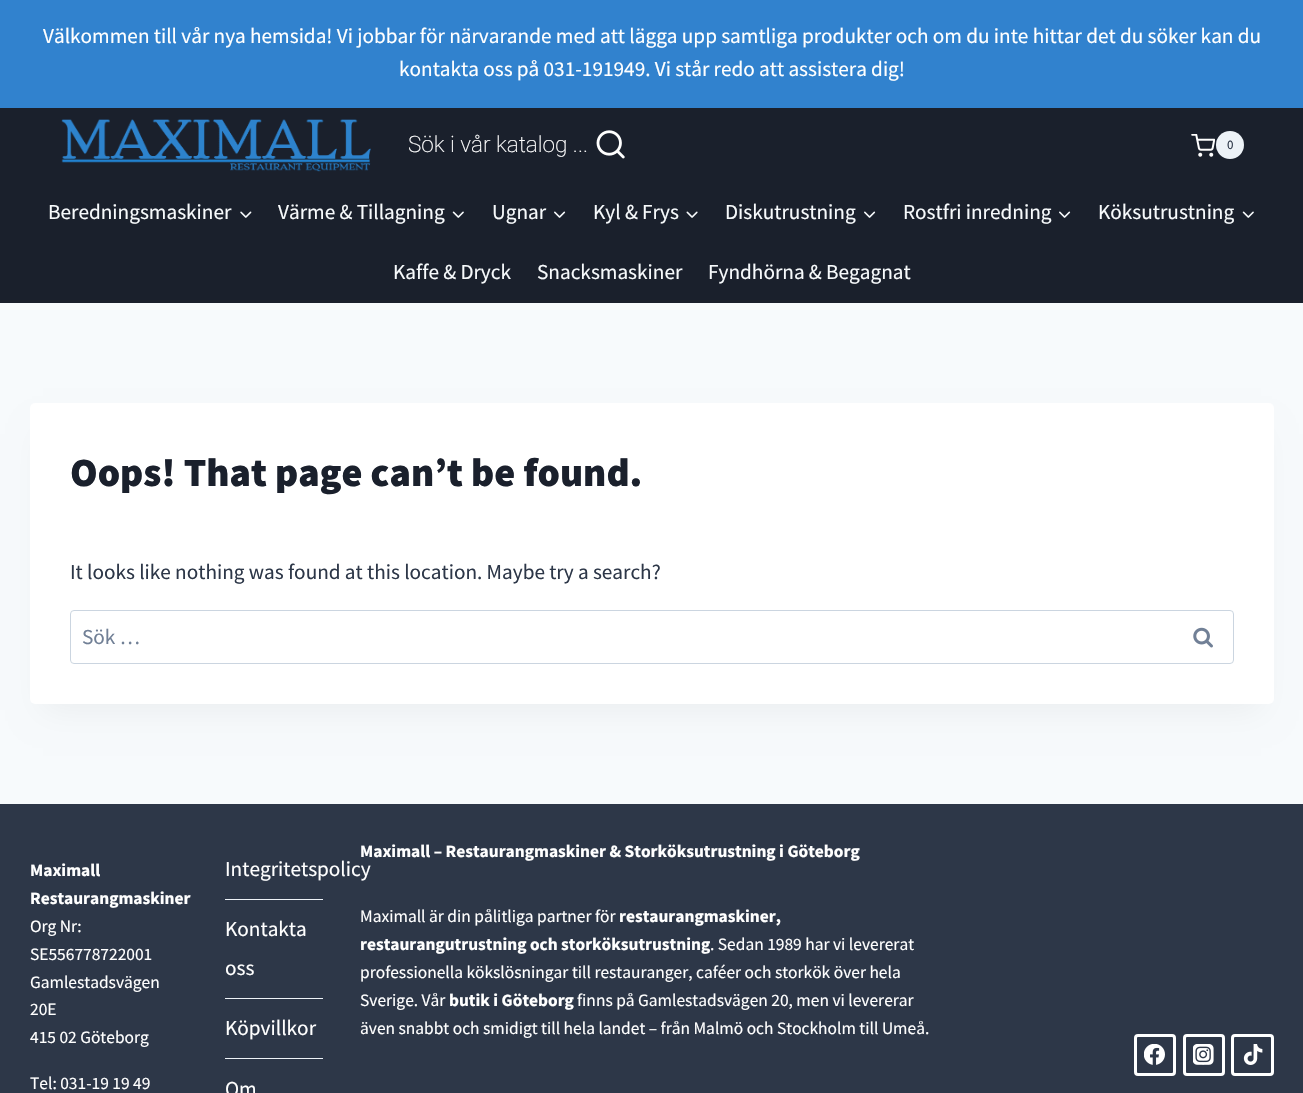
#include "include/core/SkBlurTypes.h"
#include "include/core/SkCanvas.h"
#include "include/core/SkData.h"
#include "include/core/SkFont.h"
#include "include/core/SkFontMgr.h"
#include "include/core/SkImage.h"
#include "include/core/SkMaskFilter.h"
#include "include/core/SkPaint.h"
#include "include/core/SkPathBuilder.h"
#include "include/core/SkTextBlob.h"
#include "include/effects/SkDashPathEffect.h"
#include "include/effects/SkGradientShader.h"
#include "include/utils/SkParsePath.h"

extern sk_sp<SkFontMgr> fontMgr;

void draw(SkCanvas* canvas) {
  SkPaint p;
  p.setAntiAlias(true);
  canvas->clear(SkColorSetRGB(247, 250, 252));
  p.setColor(SkColorSetRGB(49, 130, 206));
  canvas->drawRect(SkRect::MakeLTRB(0, 0, 1303, 108), p);
  p.setColor(SkColorSetRGB(26, 32, 44));
  canvas->drawRect(SkRect::MakeLTRB(0, 108, 1303, 303), p);
  canvas->drawImageRect(SkImages::DeferredFromEncodedData(SkData::MakeFromFileName("images/1.png")), SkRect::MakeLTRB(61, 119, 371, 172), SkSamplingOptions());
  canvas->drawImageRect(SkImages::DeferredFromEncodedData(SkData::MakeFromFileName("images/2.png")), SkRect::MakeLTRB(596, 130, 625, 159), SkSamplingOptions());
  canvas->drawImageRect(SkImages::DeferredFromEncodedData(SkData::MakeFromFileName("images/3.png")), SkRect::MakeLTRB(1191, 134, 1215, 157), SkSamplingOptions());
  p.setColor(SkColorSetRGB(237, 242, 247));
  canvas->drawCircle(1230, 145, 14, p);
  canvas->drawImageRect(SkImages::DeferredFromEncodedData(SkData::MakeFromFileName("images/4.png")), SkRect::MakeLTRB(240, 211, 252, 218), SkSamplingOptions());
  canvas->drawImageRect(SkImages::DeferredFromEncodedData(SkData::MakeFromFileName("images/5.png")), SkRect::MakeLTRB(452, 211, 464, 218), SkSamplingOptions());
  canvas->drawImageRect(SkImages::DeferredFromEncodedData(SkData::MakeFromFileName("images/6.png")), SkRect::MakeLTRB(554, 211, 566, 218), SkSamplingOptions());
  canvas->drawImageRect(SkImages::DeferredFromEncodedData(SkData::MakeFromFileName("images/7.png")), SkRect::MakeLTRB(686, 211, 698, 218), SkSamplingOptions());
  canvas->drawImageRect(SkImages::DeferredFromEncodedData(SkData::MakeFromFileName("images/6.png")), SkRect::MakeLTRB(864, 211, 876, 218), SkSamplingOptions());
  canvas->drawImageRect(SkImages::DeferredFromEncodedData(SkData::MakeFromFileName("images/6.png")), SkRect::MakeLTRB(1059, 211, 1071, 218), SkSamplingOptions());
  canvas->drawImageRect(SkImages::DeferredFromEncodedData(SkData::MakeFromFileName("images/5.png")), SkRect::MakeLTRB(1242, 211, 1254, 218), SkSamplingOptions());
  p.setColor(SkColorSetARGB(13, 0, 0, 0));
  p.setMaskFilter(SkMaskFilter::MakeBlur(kNormal_SkBlurStyle, 15.5f));
  canvas->drawRect(SkRect::MakeLTRB(43, 434, 1261, 710), p);
  p.setMaskFilter(nullptr);
  p.setColor(SK_ColorWHITE);
  canvas->drawRoundRect(SkRect::MakeLTRB(30, 403, 1274, 704), 5, 5, p);
  p.setStyle(SkPaint::kStroke_Style);
  p.setStrokeWidth(1);
  p.setColor(SkColorSetRGB(203, 213, 224));
  canvas->drawRoundRect(SkRect::MakeLTRB(70.5f, 610.5f, 1233.5f, 663.5f), 3.5f, 3.5f, p);
  canvas->drawImageRect(SkImages::DeferredFromEncodedData(SkData::MakeFromFileName("images/8.png")), SkRect::MakeLTRB(1193, 627, 1213, 648), SkSamplingOptions());
  p.setStyle(SkPaint::kFill_Style);
  p.setColor(SkColorSetRGB(45, 55, 72));
  canvas->drawRect(SkRect::MakeLTRB(0, 804, 1303, 1093), p);
  p.setColor(SkColorSetRGB(237, 242, 247));
  canvas->drawRect(SkRect::MakeLTRB(225, 899, 323, 900), p);
  canvas->drawRect(SkRect::MakeLTRB(225, 998, 323, 999), p);
  canvas->drawRect(SkRect::MakeLTRB(225, 1058, 323, 1059), p);
  p.setStyle(SkPaint::kStroke_Style);
  p.setStrokeWidth(3);
  p.setColor(SK_ColorWHITE);
  canvas->drawRoundRect(SkRect::MakeLTRB(1135.5f, 1035.5f, 1174.5f, 1074.5f), 2.5f, 2.5f, p);
  canvas->drawImageRect(SkImages::DeferredFromEncodedData(SkData::MakeFromFileName("images/9.png")), SkRect::MakeLTRB(1144, 1044, 1165, 1065), SkSamplingOptions());
  canvas->drawRoundRect(SkRect::MakeLTRB(1184.5f, 1035.5f, 1223.5f, 1074.5f), 2.5f, 2.5f, p);
  canvas->drawImageRect(SkImages::DeferredFromEncodedData(SkData::MakeFromFileName("images/10.png")), SkRect::MakeLTRB(1193, 1044, 1214, 1065), SkSamplingOptions());
  canvas->drawRoundRect(SkRect::MakeLTRB(1232.5f, 1035.5f, 1272.5f, 1074.5f), 2.5f, 2.5f, p);
  canvas->drawImageRect(SkImages::DeferredFromEncodedData(SkData::MakeFromFileName("images/11.png")), SkRect::MakeLTRB(1243, 1044, 1263, 1065), SkSamplingOptions());
  SkFont font1(fontMgr->matchFamilyStyle("Source Sans Pro", SkFontStyle::Normal()), 21.25f);
  font1.setSubpixel(true);
  p.setStyle(SkPaint::kFill_Style);
  canvas->drawString("Välkommen till vår nya hemsida! Vi jobbar för närvarande med att lägga upp samtliga produkter och om du inte hittar det du söker kan du", 43, 43, font1, p);
  canvas->drawString("kontakta oss på 031-191949. Vi står redo att assistera dig!", 399, 76, font1, p);
  SkFont font2(fontMgr->matchFamilyStyle("Roboto", SkFontStyle(200, SkFontStyle::kNormal_Width, SkFontStyle::kUpright_Slant)), 22.5f);
  font2.setSubpixel(true);
  canvas->drawString("Sök i vår katalog ...", 408, 152, font2, p);
  SkFont font3(fontMgr->matchFamilyStyle("Source Sans Pro", SkFontStyle::Normal()), 13);
  font3.setSubpixel(true);
  p.setColor(SkColorSetRGB(45, 55, 72));
  canvas->drawString("0", 1227, 149, font3, p);
  p.setColor(SkColorSetRGB(247, 250, 252));
  canvas->drawString("Beredningsmaskiner", 48, 219, font1, p);
  canvas->drawString("Värme & Tillagning", 278, 219, font1, p);
  canvas->drawString("Ugnar", 492, 219, font1, p);
  canvas->drawString("Kyl & Frys", 593, 219, font1, p);
  canvas->drawString("Diskutrustning", 725, 219, font1, p);
  canvas->drawString("Rostfri inredning", 903, 219, font1, p);
  canvas->drawString("Köksutrustning", 1098, 219, font1, p);
  canvas->drawString("Kaffe & Dryck", 393, 279, font1, p);
  canvas->drawString("Snacksmaskiner", 537, 279, font1, p);
  canvas->drawString("Fyndhörna & Begagnat", 708, 279, font1, p);
  SkFont font4(fontMgr->matchFamilyStyle("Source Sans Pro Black", SkFontStyle(900, SkFontStyle::kNormal_Width, SkFontStyle::kUpright_Slant)), 40);
  font4.setSubpixel(true);
  p.setColor(SkColorSetRGB(26, 32, 44));
  canvas->drawString("Oops! That page can’t be found.", 70, 486, font4, p);
  p.setColor(SkColorSetRGB(45, 55, 72));
  canvas->drawString("It looks like nothing was found at this location. Maybe try a search?", 70, 579, font1, p);
  p.setColor(SkColorSetRGB(113, 128, 150));
  canvas->drawString("Sök …", 82, 644, font1, p);
  SkFont font5(fontMgr->matchFamilyStyle("Source Sans Pro", SkFontStyle::Bold()), 17.4f);
  font5.setSubpixel(true);
  p.setColor(SK_ColorWHITE);
  canvas->drawString("Maximall", 30, 876, font5, p);
  canvas->drawString("Restaurangmaskiner", 30, 904, font5, p);
  SkFont font6(fontMgr->matchFamilyStyle("Source Sans Pro", SkFontStyle::Normal()), 17.4f);
  font6.setSubpixel(true);
  canvas->drawString("Org Nr:", 30, 932, font6, p);
  canvas->drawString("SE556778722001", 30, 960, font6, p);
  canvas->drawString("Gamlestadsvägen", 30, 988, font6, p);
  canvas->drawString("20E", 30, 1015, font6, p);
  canvas->drawString("415 02 Göteborg", 30, 1043, font6, p);
  canvas->drawString("Tel: 031-19 19 49", 30, 1089, font6, p);
  canvas->drawString("Integritetspolicy", 225, 876, font1, p);
  canvas->drawString("Kontakta", 225, 936, font1, p);
  canvas->drawString("oss", 225, 975, font1, p);
  canvas->drawString("Köpvillkor", 225, 1035, font1, p);
  canvas->drawString("Om", 225, 1096, font1, p);
  canvas->drawString("Maximall – Restaurangmaskiner & Storköksutrustning i Göteborg", 360, 857, font5, p);
  canvas->drawString("Maximall är din pålitliga partner för", 360, 922, font6, p);
  canvas->drawString("restaurangmaskiner,", 619, 922, font5, p);
  canvas->drawString("restaurangutrustning och storköksutrustning", 360, 950, font5, p);
  canvas->drawString(". Sedan 1989 har vi levererat", 710, 950, font6, p);
  canvas->drawString("professionella kökslösningar till restauranger, caféer och storkök över hela", 360, 978, font6, p);
  canvas->drawString("Sverige. Vår", 360, 1006, font6, p);
  canvas->drawString("butik i Göteborg", 449, 1006, font5, p);
  canvas->drawString("finns på Gamlestadsvägen 20, men vi levererar", 577, 1006, font6, p);
  canvas->drawString("även snabbt och smidigt till hela landet – från Malmö och Stockholm till Umeå.", 360, 1034, font6, p);
}
